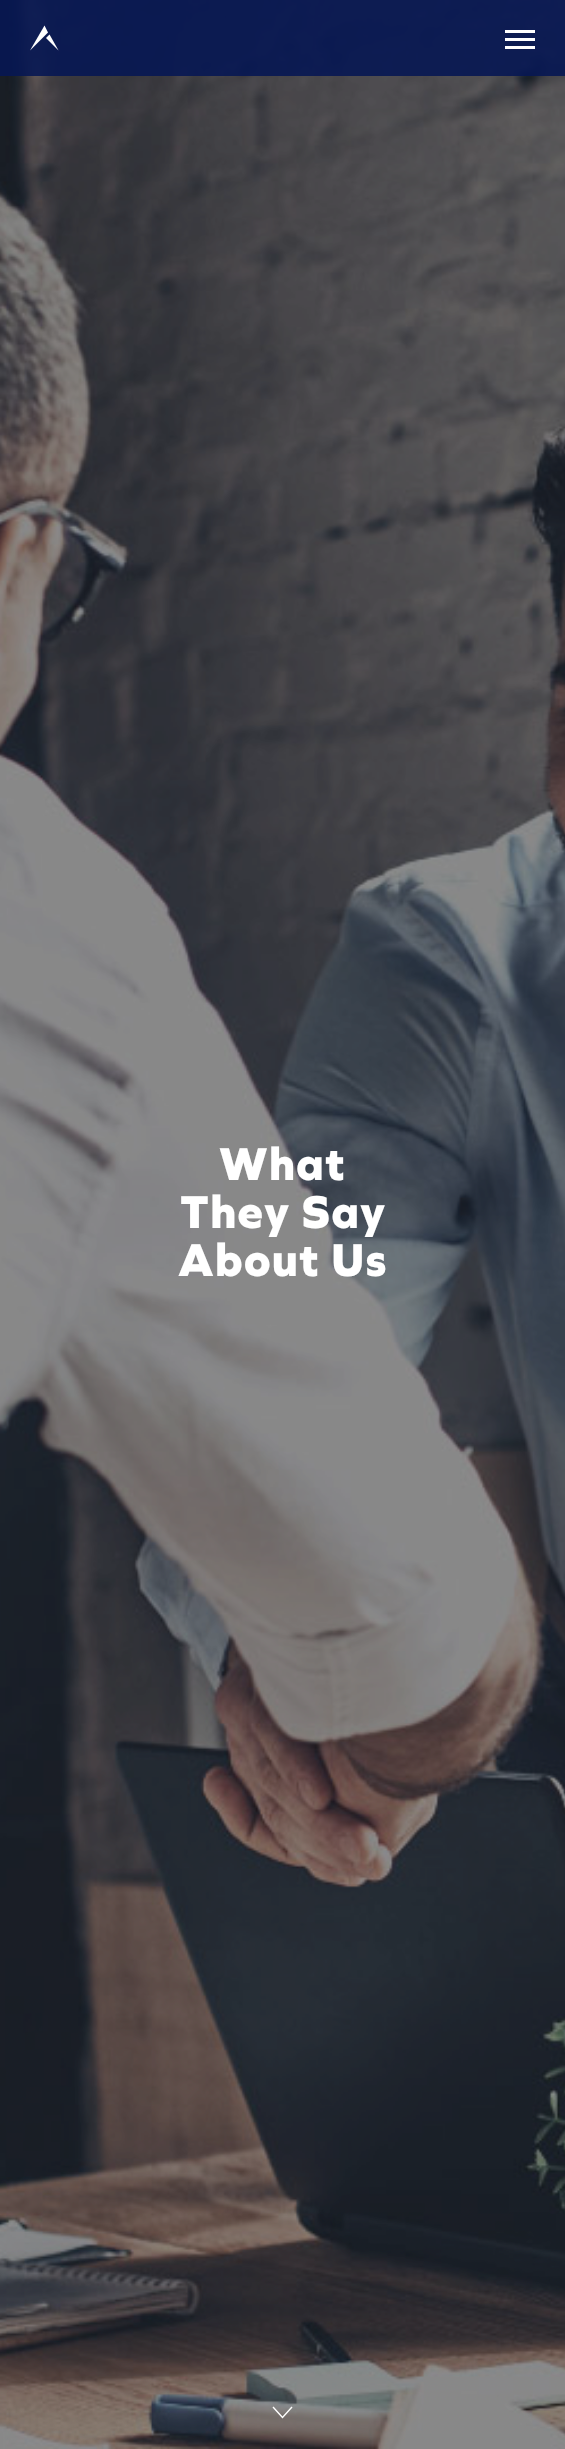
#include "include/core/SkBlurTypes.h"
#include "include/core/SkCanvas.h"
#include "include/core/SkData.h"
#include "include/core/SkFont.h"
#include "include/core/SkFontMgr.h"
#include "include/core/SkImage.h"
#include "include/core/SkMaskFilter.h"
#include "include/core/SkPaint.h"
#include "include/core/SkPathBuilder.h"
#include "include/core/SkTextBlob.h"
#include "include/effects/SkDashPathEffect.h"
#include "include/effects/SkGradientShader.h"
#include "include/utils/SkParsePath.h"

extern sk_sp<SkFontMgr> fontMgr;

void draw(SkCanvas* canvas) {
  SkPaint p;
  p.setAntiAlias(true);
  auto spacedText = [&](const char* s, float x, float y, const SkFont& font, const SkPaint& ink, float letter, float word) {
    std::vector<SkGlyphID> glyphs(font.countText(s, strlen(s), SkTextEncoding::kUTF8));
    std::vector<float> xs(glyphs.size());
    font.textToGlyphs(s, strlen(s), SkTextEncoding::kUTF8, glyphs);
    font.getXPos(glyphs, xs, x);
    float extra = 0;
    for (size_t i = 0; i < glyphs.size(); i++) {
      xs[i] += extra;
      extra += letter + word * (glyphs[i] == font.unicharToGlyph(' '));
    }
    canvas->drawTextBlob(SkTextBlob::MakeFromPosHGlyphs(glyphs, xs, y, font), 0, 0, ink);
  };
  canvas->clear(SK_ColorWHITE);
  canvas->drawImageRect(SkImages::DeferredFromEncodedData(SkData::MakeFromFileName("images/1.png")), SkRect::MakeLTRB(0, 0, 565, 2449), SkSamplingOptions());
  p.setColor(SkColorSetARGB(230, 6, 22, 82));
  canvas->drawRect(SkRect::MakeLTRB(0, 0, 565, 76), p);
  p.setColor(SK_ColorWHITE);
  canvas->drawPath(SkPathBuilder().moveTo(48, 32.5f).lineTo(30, 50.5f).lineTo(44.5f, 25.5f).close().detach(), p);
  canvas->drawPath(SkPathBuilder().moveTo(58.5f, 50.5f).lineTo(46, 38).lineTo(49.5f, 34.5f).close().detach(), p);
  canvas->drawRect(SkRect::MakeLTRB(505, 38, 535, 41), p);
  canvas->drawRect(SkRect::MakeLTRB(505, 30, 535, 33), p);
  canvas->drawRect(SkRect::MakeLTRB(505, 46, 535, 49), p);
  p.setStyle(SkPaint::kStroke_Style);
  p.setStrokeWidth(1.4f);
  canvas->drawPath(SkPathBuilder().moveTo(273, 2407).lineTo(282.5f, 2417.5f).lineTo(292, 2407).detach(), p);
  SkFont font1(fontMgr->matchFamilyStyle("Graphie", SkFontStyle(800, SkFontStyle::kNormal_Width, SkFontStyle::kUpright_Slant)), 48);
  font1.setSubpixel(true);
  p.setStyle(SkPaint::kFill_Style);
  spacedText("What", 219, 1180, font1, p, 1, 0);
  spacedText("They Say", 180, 1228, font1, p, 1, 0);
  spacedText("About Us", 178, 1276, font1, p, 1, 0);
}
